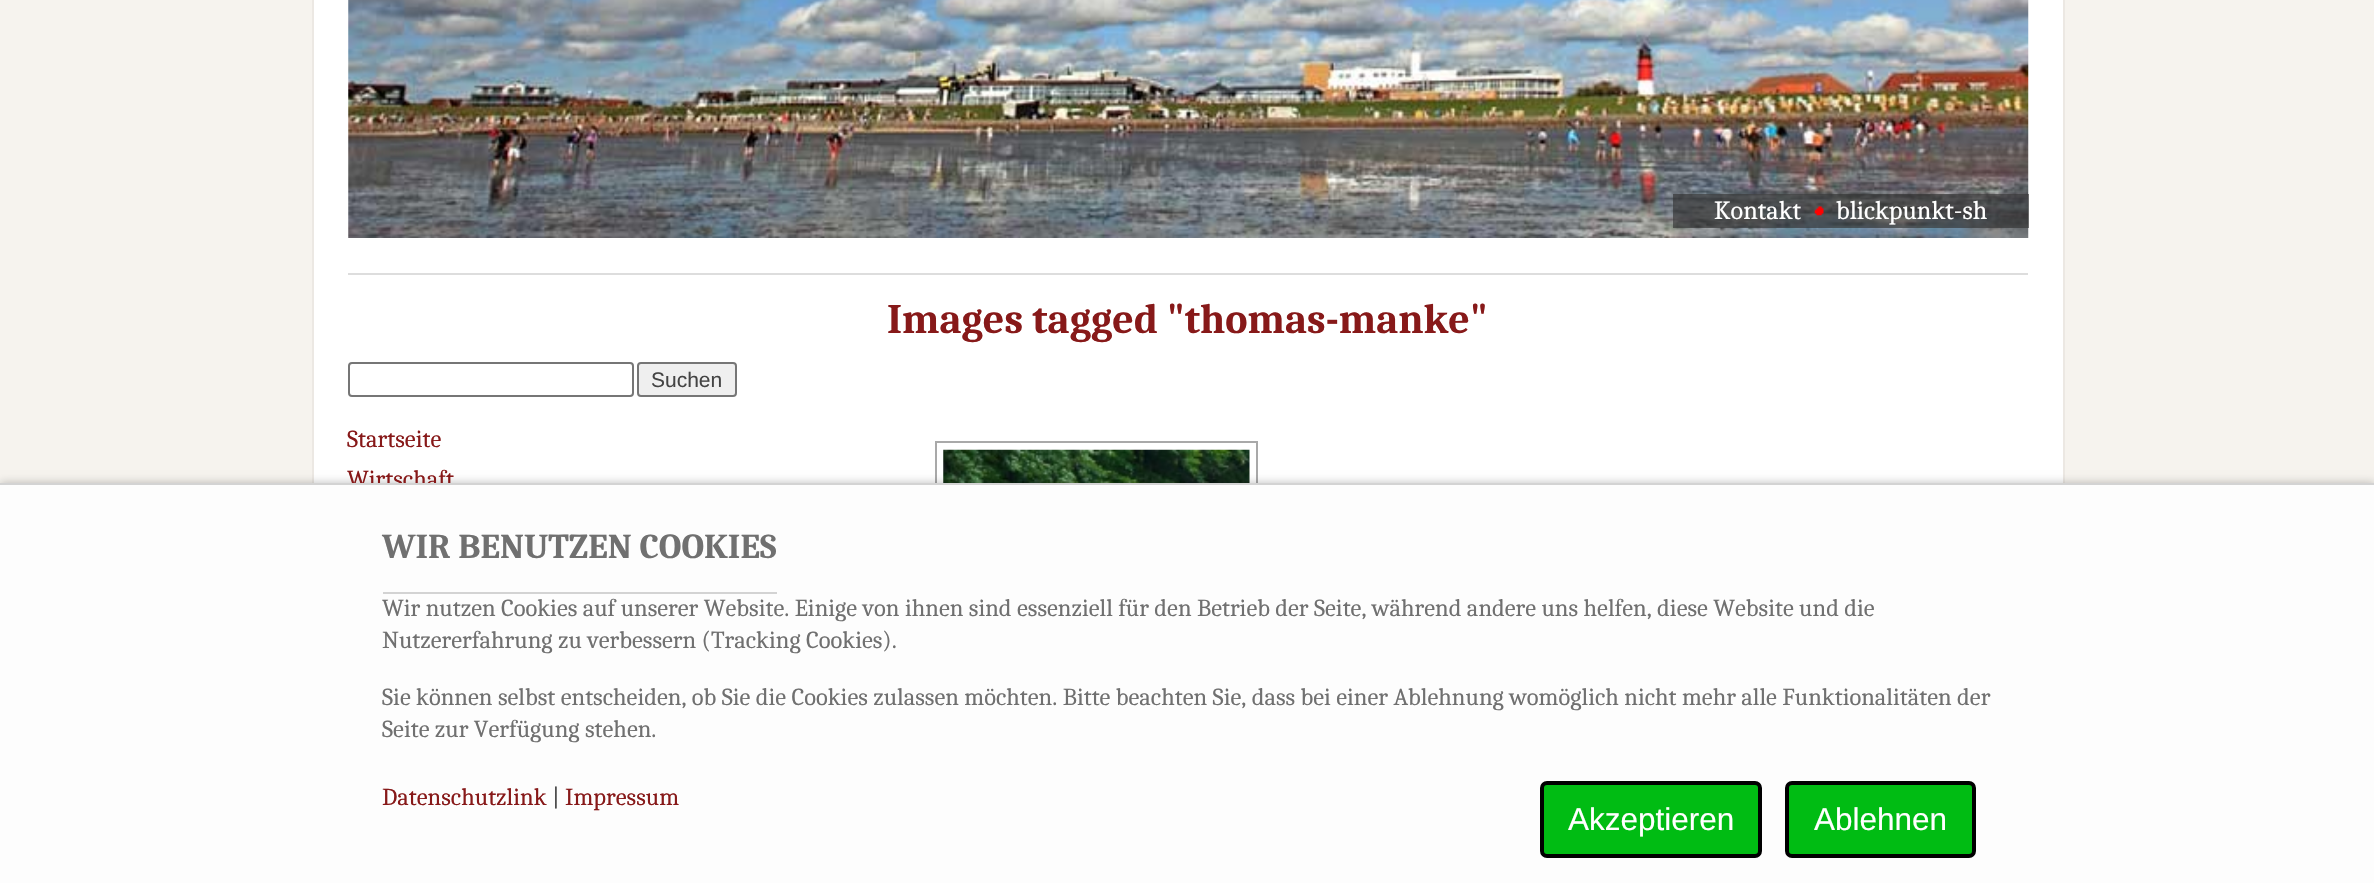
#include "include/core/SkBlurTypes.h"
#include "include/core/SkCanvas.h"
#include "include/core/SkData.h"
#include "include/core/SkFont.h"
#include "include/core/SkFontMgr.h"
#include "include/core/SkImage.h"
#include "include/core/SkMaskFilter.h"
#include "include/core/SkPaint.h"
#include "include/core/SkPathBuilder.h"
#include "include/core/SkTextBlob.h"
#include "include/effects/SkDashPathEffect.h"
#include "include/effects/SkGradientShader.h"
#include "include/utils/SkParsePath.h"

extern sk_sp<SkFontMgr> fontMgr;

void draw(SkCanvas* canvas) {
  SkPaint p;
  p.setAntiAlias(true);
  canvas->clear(SkColorSetRGB(246, 243, 238));
  p.setColor(SK_ColorWHITE);
  canvas->drawRect(SkRect::MakeLTRB(314, 0, 2063, 483), p);
  p.setColor(SkColorSetRGB(236, 232, 227));
  canvas->drawRect(SkRect::MakeLTRB(2063, 0, 2065, 483), p);
  canvas->drawRect(SkRect::MakeLTRB(312, 0, 314, 483), p);
  p.setColor(SkColorSetRGB(221, 221, 221));
  canvas->drawRect(SkRect::MakeLTRB(348, 273, 2028, 275), p);
  canvas->drawImageRect(SkImages::DeferredFromEncodedData(SkData::MakeFromFileName("images/1.png")), SkRect::MakeLTRB(348, 0, 2029, 238), SkSamplingOptions());
  p.setColor(SkColorSetARGB(166, 50, 50, 50));
  canvas->drawRect(SkRect::MakeLTRB(1673, 194, 2029, 228), p);
  canvas->drawImageRect(SkImages::DeferredFromEncodedData(SkData::MakeFromFileName("images/2.png")), SkRect::MakeLTRB(1814, 206, 1824, 216), SkSamplingOptions());
  p.setStyle(SkPaint::kStroke_Style);
  p.setStrokeWidth(2);
  p.setColor(SkColorSetRGB(118, 118, 118));
  canvas->drawRoundRect(SkRect::MakeLTRB(349, 363, 633, 396), 3, 3, p);
  p.setStyle(SkPaint::kFill_Style);
  p.setColor(SkColorSetRGB(239, 239, 239));
  canvas->drawRoundRect(SkRect::MakeLTRB(638, 363, 736, 396), 3, 3, p);
  p.setStyle(SkPaint::kStroke_Style);
  p.setColor(SkColorSetRGB(118, 118, 118));
  canvas->drawRoundRect(SkRect::MakeLTRB(638, 363, 736, 396), 3, 3, p);
  p.setColor(SkColorSetRGB(169, 169, 169));
  canvas->drawRect(SkRect::MakeLTRB(936, 442, 1257, 764), p);
  canvas->drawImageRect(SkImages::DeferredFromEncodedData(SkData::MakeFromFileName("images/3.png")), SkRect::MakeLTRB(943, 449, 1250, 483), SkSamplingOptions());
  p.setStyle(SkPaint::kFill_Style);
  p.setColor(SkColorSetARGB(64, 0, 0, 0));
  p.setMaskFilter(SkMaskFilter::MakeBlur(kNormal_SkBlurStyle, 4.5f));
  canvas->drawRect(SkRect::MakeLTRB(0, 483, 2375, 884), p);
  p.setMaskFilter(nullptr);
  SkFont font1(fontMgr->matchFamilyStyle("Caladea", SkFontStyle::Normal()), 26.25f);
  font1.setSubpixel(true);
  p.setColor(SK_ColorWHITE);
  canvas->drawString("Kontakt", 1714, 219, font1, p);
  canvas->drawString("blickpunkt-sh", 1836, 219, font1, p);
  SkFont font2(fontMgr->matchFamilyStyle("Caladea", SkFontStyle::Bold()), 42);
  font2.setSubpixel(true);
  p.setColor(SkColorSetRGB(135, 25, 25));
  canvas->drawString("Images tagged \"thomas-manke\"", 887, 333, font2, p);
  SkFont font3(fontMgr->matchFamilyStyle("Liberation Sans", SkFontStyle::Normal()), 21);
  font3.setSubpixel(true);
  p.setColor(SkColorSetRGB(68, 68, 68));
  canvas->drawString("Suchen", 651, 387, font3, p);
  SkFont font4(fontMgr->matchFamilyStyle("Caladea", SkFontStyle::Normal()), 24.5f);
  font4.setSubpixel(true);
  p.setColor(SkColorSetRGB(135, 25, 25));
  canvas->drawString("Startseite", 347, 447, font4, p);
  canvas->drawString("Wirtschaft", 347, 487, font4, p);
  p.setColor(SkColorSetRGB(253, 253, 253));
  canvas->drawRect(SkRect::MakeLTRB(0, 485, 2374, 883), p);
  p.setColor(SkColorSetRGB(211, 211, 211));
  canvas->drawRect(SkRect::MakeLTRB(0, 483, 2374, 485), p);
  canvas->drawRect(SkRect::MakeLTRB(383, 592, 777, 594), p);
  SkFont font5(fontMgr->matchFamilyStyle("Caladea", SkFontStyle::Bold()), 35);
  font5.setSubpixel(true);
  p.setColor(SkColorSetRGB(112, 112, 112));
  canvas->drawString("WIR BENUTZEN COOKIES", 382, 558, font5, p);
  canvas->drawString("Wir nutzen Cookies auf unserer Website. Einige von ihnen sind essenziell für den Betrieb der Seite, während andere uns helfen, diese Website und die", 382, 616, font4, p);
  canvas->drawString("Nutzererfahrung zu verbessern (Tracking Cookies).", 382, 648, font4, p);
  canvas->drawString("Sie können selbst entscheiden, ob Sie die Cookies zulassen möchten. Bitte beachten Sie, dass bei einer Ablehnung womöglich nicht mehr alle Funktionalitäten der", 382, 705, font4, p);
  canvas->drawString("Seite zur Verfügung stehen.", 382, 737, font4, p);
  p.setColor(SkColorSetRGB(135, 25, 25));
  canvas->drawString("Datenschutzlink", 382, 805, font4, p);
  p.setColor(SkColorSetRGB(68, 68, 68));
  canvas->drawString("|", 552, 805, font4, p);
  p.setColor(SkColorSetRGB(135, 25, 25));
  canvas->drawString("Impressum", 565, 805, font4, p);
  p.setColor(SkColorSetRGB(0, 188, 19));
  canvas->drawRoundRect(SkRect::MakeLTRB(1542, 783, 1760, 856), 5, 5, p);
  p.setStyle(SkPaint::kStroke_Style);
  p.setStrokeWidth(4);
  p.setColor(SK_ColorBLACK);
  canvas->drawRoundRect(SkRect::MakeLTRB(1542, 783, 1760, 856), 5, 5, p);
  SkFont font6(fontMgr->matchFamilyStyle("Liberation Sans", SkFontStyle::Normal()), 31.5f);
  font6.setSubpixel(true);
  p.setStyle(SkPaint::kFill_Style);
  p.setColor(SK_ColorWHITE);
  canvas->drawString("Akzeptieren", 1568, 830, font6, p);
  p.setColor(SkColorSetRGB(0, 188, 19));
  canvas->drawRoundRect(SkRect::MakeLTRB(1787, 783, 1974, 856), 5, 5, p);
  p.setStyle(SkPaint::kStroke_Style);
  p.setColor(SK_ColorBLACK);
  canvas->drawRoundRect(SkRect::MakeLTRB(1787, 783, 1974, 856), 5, 5, p);
  p.setStyle(SkPaint::kFill_Style);
  p.setColor(SK_ColorWHITE);
  canvas->drawString("Ablehnen", 1814, 830, font6, p);
}
